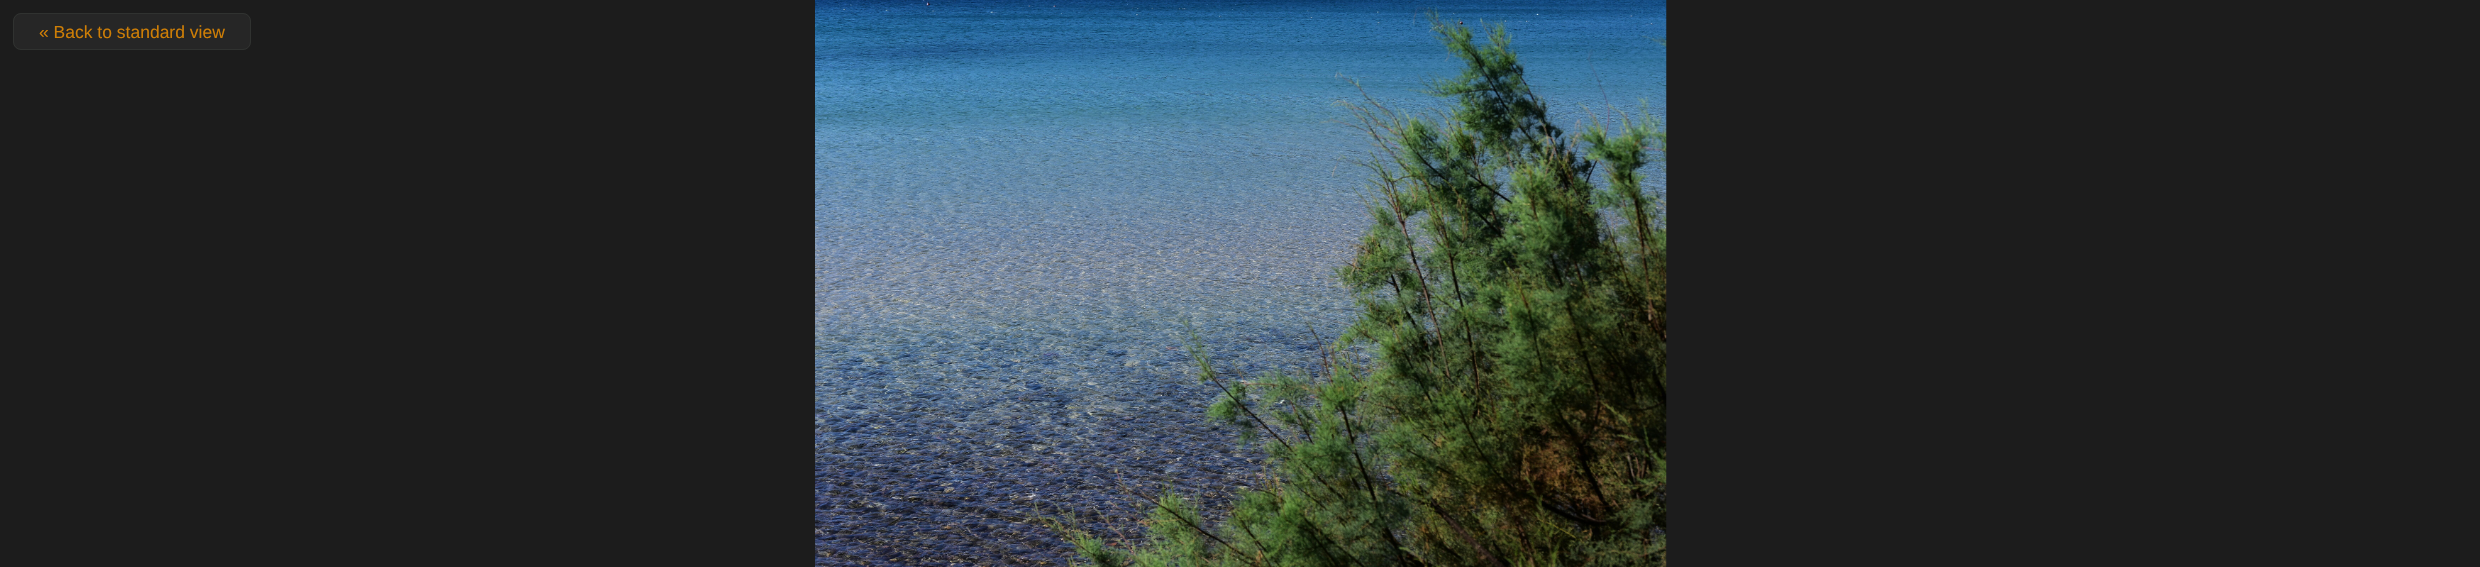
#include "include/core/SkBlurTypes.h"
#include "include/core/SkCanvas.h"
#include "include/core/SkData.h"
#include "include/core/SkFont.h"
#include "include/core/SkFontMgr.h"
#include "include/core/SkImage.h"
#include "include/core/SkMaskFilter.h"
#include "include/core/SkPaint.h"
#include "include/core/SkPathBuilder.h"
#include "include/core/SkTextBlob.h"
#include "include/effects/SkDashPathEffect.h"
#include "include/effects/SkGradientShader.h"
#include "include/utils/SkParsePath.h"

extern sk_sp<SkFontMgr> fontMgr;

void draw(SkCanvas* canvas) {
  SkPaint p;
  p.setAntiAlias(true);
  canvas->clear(SkColorSetRGB(28, 28, 28));
  p.setColor(SkColorSetRGB(38, 38, 38));
  canvas->drawRoundRect(SkRect::MakeLTRB(13.5f, 13.5f, 250.5f, 49.5f), 7.5f, 7.5f, p);
  p.setStyle(SkPaint::kStroke_Style);
  p.setStrokeWidth(1);
  p.setColor(SkColorSetRGB(48, 50, 48));
  canvas->drawRoundRect(SkRect::MakeLTRB(13.5f, 13.5f, 250.5f, 49.5f), 7.5f, 7.5f, p);
  canvas->drawImageRect(SkImages::DeferredFromEncodedData(SkData::MakeFromFileName("images/1.png")), SkRect::MakeLTRB(815, 0, 1667, 567), SkSamplingOptions());
  SkFont font1(fontMgr->matchFamilyStyle("Liberation Sans", SkFontStyle::Normal()), 17.5f);
  font1.setSubpixel(true);
  p.setStyle(SkPaint::kFill_Style);
  p.setColor(SkColorSetRGB(206, 126, 6));
  canvas->drawString("« Back to standard view", 39, 38, font1, p);
}
